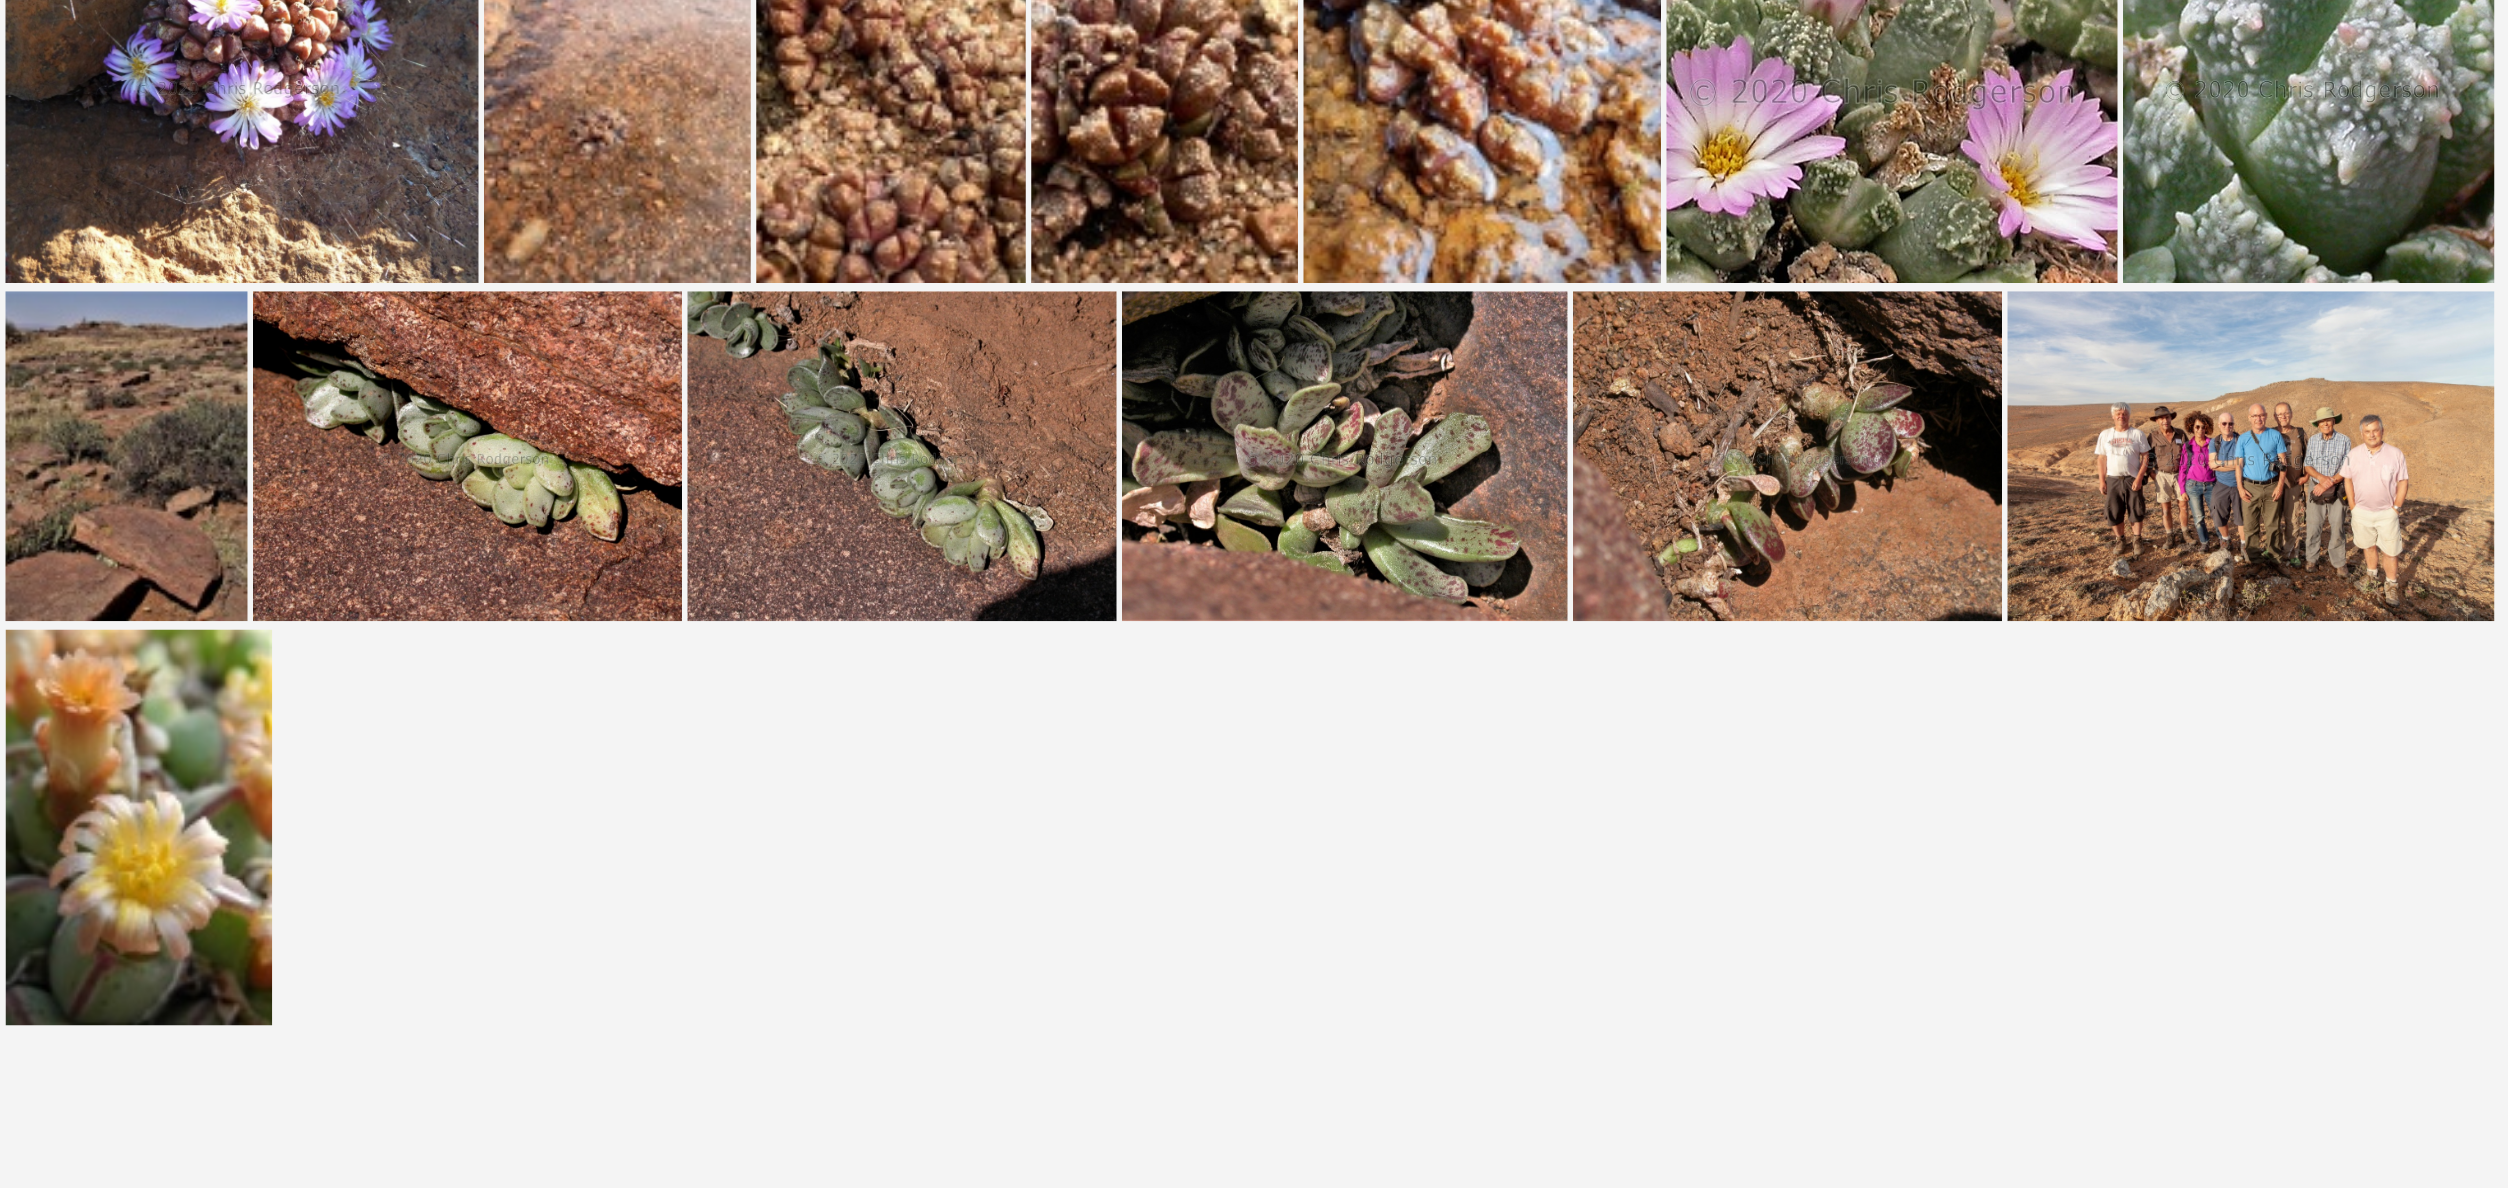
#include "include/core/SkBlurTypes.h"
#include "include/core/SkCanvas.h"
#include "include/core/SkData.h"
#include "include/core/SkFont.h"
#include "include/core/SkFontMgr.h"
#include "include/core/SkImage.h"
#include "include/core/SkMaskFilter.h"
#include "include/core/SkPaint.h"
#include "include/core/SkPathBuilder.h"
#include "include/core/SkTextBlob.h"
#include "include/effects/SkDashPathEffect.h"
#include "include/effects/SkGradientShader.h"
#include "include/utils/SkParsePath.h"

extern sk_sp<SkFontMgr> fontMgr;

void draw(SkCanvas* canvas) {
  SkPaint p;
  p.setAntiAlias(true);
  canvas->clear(SkColorSetRGB(244, 244, 244));
  canvas->drawImageRect(SkImages::DeferredFromEncodedData(SkData::MakeFromFileName("images/1.png")), SkRect::MakeLTRB(5, 0, 479, 283), SkSamplingOptions());
  canvas->drawImageRect(SkImages::DeferredFromEncodedData(SkData::MakeFromFileName("images/2.png")), SkRect::MakeLTRB(484, 0, 751, 283), SkSamplingOptions());
  canvas->drawImageRect(SkImages::DeferredFromEncodedData(SkData::MakeFromFileName("images/3.png")), SkRect::MakeLTRB(756, 0, 1026, 283), SkSamplingOptions());
  canvas->drawImageRect(SkImages::DeferredFromEncodedData(SkData::MakeFromFileName("images/4.png")), SkRect::MakeLTRB(1031, 0, 1298, 283), SkSamplingOptions());
  canvas->drawImageRect(SkImages::DeferredFromEncodedData(SkData::MakeFromFileName("images/5.png")), SkRect::MakeLTRB(1303, 0, 1661, 283), SkSamplingOptions());
  canvas->drawImageRect(SkImages::DeferredFromEncodedData(SkData::MakeFromFileName("images/6.png")), SkRect::MakeLTRB(1666, 0, 2118, 283), SkSamplingOptions());
  canvas->drawImageRect(SkImages::DeferredFromEncodedData(SkData::MakeFromFileName("images/7.png")), SkRect::MakeLTRB(2123, 0, 2495, 283), SkSamplingOptions());
  canvas->drawImageRect(SkImages::DeferredFromEncodedData(SkData::MakeFromFileName("images/8.png")), SkRect::MakeLTRB(5, 291, 248, 622), SkSamplingOptions());
  canvas->drawImageRect(SkImages::DeferredFromEncodedData(SkData::MakeFromFileName("images/9.png")), SkRect::MakeLTRB(253, 291, 682, 622), SkSamplingOptions());
  canvas->drawImageRect(SkImages::DeferredFromEncodedData(SkData::MakeFromFileName("images/10.png")), SkRect::MakeLTRB(687, 291, 1117, 622), SkSamplingOptions());
  canvas->drawImageRect(SkImages::DeferredFromEncodedData(SkData::MakeFromFileName("images/11.png")), SkRect::MakeLTRB(1122, 291, 1568, 622), SkSamplingOptions());
  canvas->drawImageRect(SkImages::DeferredFromEncodedData(SkData::MakeFromFileName("images/12.png")), SkRect::MakeLTRB(1573, 291, 2002, 622), SkSamplingOptions());
  canvas->drawImageRect(SkImages::DeferredFromEncodedData(SkData::MakeFromFileName("images/13.png")), SkRect::MakeLTRB(2007, 291, 2495, 622), SkSamplingOptions());
  canvas->drawImageRect(SkImages::DeferredFromEncodedData(SkData::MakeFromFileName("images/14.png")), SkRect::MakeLTRB(5, 629, 273, 1026), SkSamplingOptions());
}
